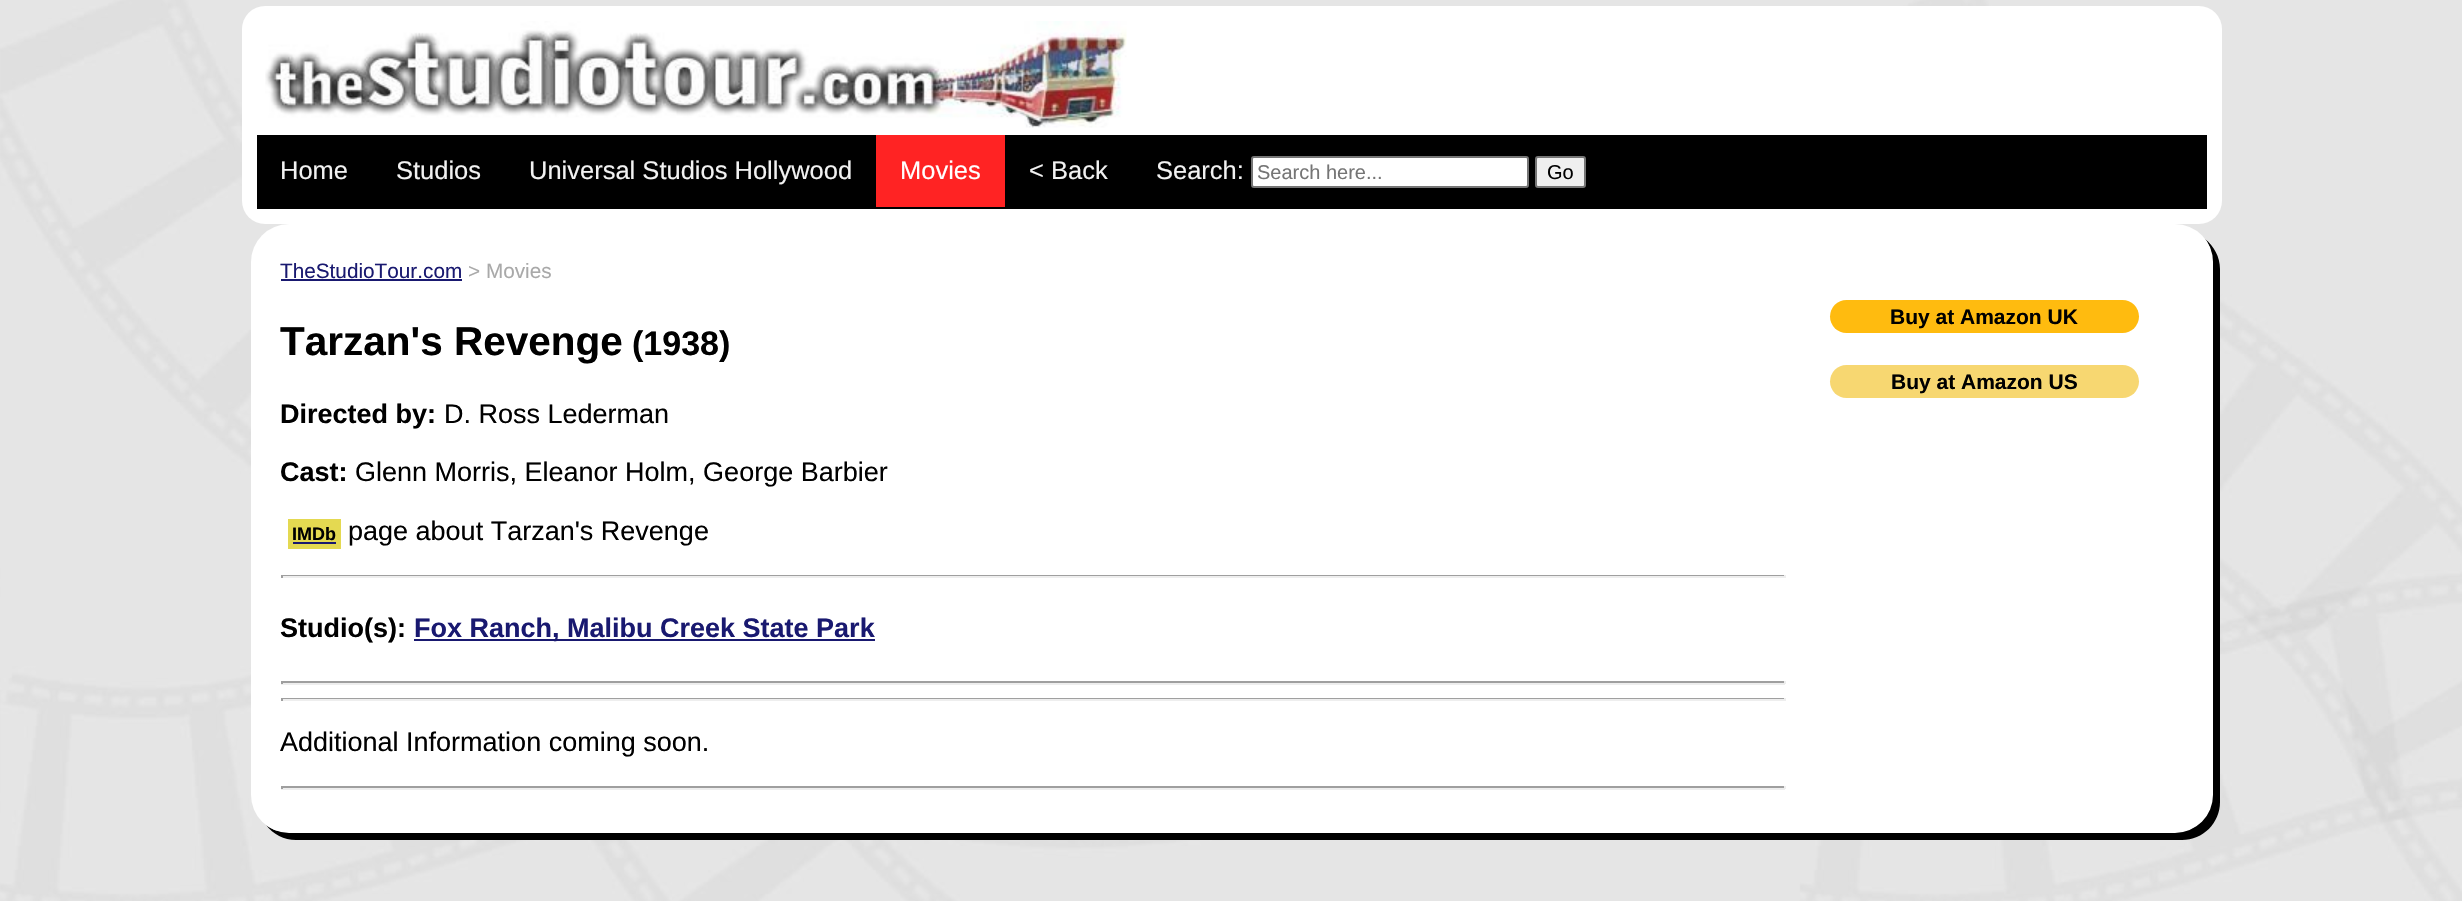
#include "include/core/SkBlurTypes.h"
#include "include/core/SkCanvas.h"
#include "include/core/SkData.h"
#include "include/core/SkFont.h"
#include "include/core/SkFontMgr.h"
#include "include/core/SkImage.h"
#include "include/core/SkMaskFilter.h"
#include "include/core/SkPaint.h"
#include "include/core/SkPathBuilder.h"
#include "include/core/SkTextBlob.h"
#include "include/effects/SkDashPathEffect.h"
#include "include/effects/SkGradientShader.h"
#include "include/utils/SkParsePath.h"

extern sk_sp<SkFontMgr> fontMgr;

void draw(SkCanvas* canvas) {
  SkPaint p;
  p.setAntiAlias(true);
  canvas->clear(SK_ColorWHITE);
  canvas->drawImageRect(SkImages::DeferredFromEncodedData(SkData::MakeFromFileName("images/1.png")), SkRect::MakeLTRB(0, 0, 2462, 901), SkSamplingOptions());
  p.setColor(SK_ColorWHITE);
  canvas->drawRoundRect(SkRect::MakeLTRB(242, 6, 2222, 224), 23, 23, p);
  canvas->drawImageRect(SkImages::DeferredFromEncodedData(SkData::MakeFromFileName("images/2.png")), SkRect::MakeLTRB(265, 21, 1127, 128), SkSamplingOptions());
  p.setColor(SK_ColorBLACK);
  canvas->drawRect(SkRect::MakeLTRB(257, 135, 2207, 209), p);
  p.setColor(SkColorSetRGB(255, 35, 35));
  canvas->drawRect(SkRect::MakeLTRB(876, 135, 1005, 207), p);
  p.setColor(SK_ColorWHITE);
  canvas->drawRoundRect(SkRect::MakeLTRB(1252, 157, 1528, 187), 2, 2, p);
  p.setStyle(SkPaint::kStroke_Style);
  p.setStrokeWidth(2);
  p.setColor(SkColorSetRGB(118, 118, 118));
  canvas->drawRoundRect(SkRect::MakeLTRB(1252, 157, 1528, 187), 2, 2, p);
  p.setStyle(SkPaint::kFill_Style);
  p.setColor(SkColorSetRGB(239, 239, 239));
  canvas->drawRoundRect(SkRect::MakeLTRB(1536, 157, 1585, 187), 2, 2, p);
  p.setStyle(SkPaint::kStroke_Style);
  p.setColor(SkColorSetRGB(118, 118, 118));
  canvas->drawRoundRect(SkRect::MakeLTRB(1536, 157, 1585, 187), 2, 2, p);
  p.setStyle(SkPaint::kFill_Style);
  p.setColor(SK_ColorBLACK);
  canvas->drawPath(SkPathBuilder().moveTo(266, 825).cubicTo(273, 834, 284, 840, 296, 840).lineTo(2182, 840).cubicTo(2203, 840, 2220, 823, 2220, 802).lineTo(2220, 269).cubicTo(2220, 257, 2214, 246, 2205, 239).cubicTo(2210, 245, 2212, 253, 2212, 261).lineTo(2212, 795).cubicTo(2212, 816, 2196, 832, 2175, 832).lineTo(288, 832).cubicTo(280, 832, 272, 830, 266, 825).close().detach(), p);
  p.setColor(SK_ColorWHITE);
  canvas->drawRoundRect(SkRect::MakeLTRB(251, 224, 2213, 833), 38, 38, p);
  p.setColor(SkColorSetRGB(25, 25, 112));
  canvas->drawRect(SkRect::MakeLTRB(281, 279, 462, 281), p);
  p.setColor(SkColorSetRGB(255, 187, 15));
  canvas->drawRoundRect(SkRect::MakeLTRB(1830, 300, 2139, 333), 16.5f, 16.5f, p);
  p.setColor(SkColorSetRGB(247, 215, 113));
  canvas->drawRoundRect(SkRect::MakeLTRB(1830, 365, 2139, 398), 16.5f, 16.5f, p);
  p.setColor(SkColorSetRGB(228, 217, 81));
  canvas->drawRect(SkRect::MakeLTRB(288, 519, 341, 549), p);
  p.setColor(SkColorSetRGB(25, 25, 112));
  canvas->drawRect(SkRect::MakeLTRB(293, 542, 336, 544), p);
  p.setColor(SkColorSetRGB(159, 159, 159));
  canvas->drawRect(SkRect::MakeLTRB(281, 575, 1785, 576), p);
  p.setColor(SkColorSetRGB(238, 238, 238));
  canvas->drawRect(SkRect::MakeLTRB(1784, 575, 1786, 578), p);
  canvas->drawRect(SkRect::MakeLTRB(281, 576, 1785, 578), p);
  p.setColor(SkColorSetRGB(159, 159, 159));
  canvas->drawRect(SkRect::MakeLTRB(281, 575, 283, 578), p);
  p.setColor(SkColorSetRGB(25, 25, 112));
  canvas->drawRect(SkRect::MakeLTRB(414, 639, 875, 641), p);
  p.setColor(SkColorSetRGB(159, 159, 159));
  canvas->drawRect(SkRect::MakeLTRB(281, 681, 1785, 683), p);
  p.setColor(SkColorSetRGB(238, 238, 238));
  canvas->drawRect(SkRect::MakeLTRB(1784, 681, 1786, 684), p);
  canvas->drawRect(SkRect::MakeLTRB(281, 683, 1785, 685), p);
  p.setColor(SkColorSetRGB(159, 159, 159));
  canvas->drawRect(SkRect::MakeLTRB(281, 681, 283, 684), p);
  canvas->drawRect(SkRect::MakeLTRB(281, 698, 1785, 699), p);
  p.setColor(SkColorSetRGB(238, 238, 238));
  canvas->drawRect(SkRect::MakeLTRB(1784, 698, 1786, 701), p);
  canvas->drawRect(SkRect::MakeLTRB(281, 699, 1785, 701), p);
  p.setColor(SkColorSetRGB(159, 159, 159));
  canvas->drawRect(SkRect::MakeLTRB(281, 698, 283, 701), p);
  canvas->drawRect(SkRect::MakeLTRB(281, 786, 1785, 788), p);
  p.setColor(SkColorSetRGB(238, 238, 238));
  canvas->drawRect(SkRect::MakeLTRB(1784, 786, 1786, 789), p);
  canvas->drawRect(SkRect::MakeLTRB(281, 788, 1785, 790), p);
  p.setColor(SkColorSetRGB(159, 159, 159));
  canvas->drawRect(SkRect::MakeLTRB(281, 786, 283, 789), p);
  SkFont font1(fontMgr->matchFamilyStyle("Liberation Sans", SkFontStyle::Normal()), 25.5f);
  font1.setSubpixel(true);
  p.setColor(SkColorSetRGB(242, 242, 242));
  canvas->drawString("Home", 280, 179, font1, p);
  canvas->drawString("Studios", 396, 179, font1, p);
  canvas->drawString("Universal Studios Hollywood", 529, 179, font1, p);
  p.setColor(SK_ColorWHITE);
  canvas->drawString("Movies", 900, 179, font1, p);
  p.setColor(SkColorSetRGB(242, 242, 242));
  canvas->drawString("< Back", 1029, 179, font1, p);
  canvas->drawString("Search:", 1156, 179, font1, p);
  SkFont font2(fontMgr->matchFamilyStyle("Liberation Sans", SkFontStyle::Normal()), 20);
  font2.setSubpixel(true);
  p.setColor(SkColorSetRGB(117, 117, 117));
  canvas->drawString("Search here...", 1257, 179, font2, p);
  p.setColor(SK_ColorBLACK);
  canvas->drawString("Go", 1547, 179, font2, p);
  SkFont font3(fontMgr->matchFamilyStyle("Liberation Sans", SkFontStyle::Normal()), 20.75f);
  font3.setSubpixel(true);
  p.setColor(SkColorSetRGB(25, 25, 112));
  canvas->drawString("TheStudioTour.com", 280, 278, font3, p);
  p.setColor(SkColorSetRGB(169, 169, 169));
  canvas->drawString("> Movies", 468, 278, font3, p);
  SkFont font4(fontMgr->matchFamilyStyle("Liberation Sans", SkFontStyle::Bold()), 40.5f);
  font4.setSubpixel(true);
  p.setColor(SK_ColorBLACK);
  canvas->drawString("Tarzan's Revenge", 280, 355, font4, p);
  SkFont font5(fontMgr->matchFamilyStyle("Liberation Sans", SkFontStyle::Bold()), 34);
  font5.setSubpixel(true);
  canvas->drawString("(1938)", 632, 355, font5, p);
  SkFont font6(fontMgr->matchFamilyStyle("Liberation Sans", SkFontStyle::Bold()), 21);
  font6.setSubpixel(true);
  canvas->drawString("Buy at Amazon UK", 1890, 324, font6, p);
  canvas->drawString("Buy at Amazon US", 1891, 389, font6, p);
  SkFont font7(fontMgr->matchFamilyStyle("Liberation Sans", SkFontStyle::Bold()), 27);
  font7.setSubpixel(true);
  canvas->drawString("Directed by:", 280, 423, font7, p);
  SkFont font8(fontMgr->matchFamilyStyle("Liberation Sans", SkFontStyle::Normal()), 27);
  font8.setSubpixel(true);
  canvas->drawString("D. Ross Lederman", 444, 423, font8, p);
  canvas->drawString("Cast:", 280, 481, font7, p);
  canvas->drawString("Glenn Morris, Eleanor Holm, George Barbier", 355, 481, font8, p);
  SkFont font9(fontMgr->matchFamilyStyle("Liberation Sans", SkFontStyle::Bold()), 18);
  font9.setSubpixel(true);
  canvas->drawString("IMDb", 292, 540, font9, p);
  canvas->drawString("page about Tarzan's Revenge", 348, 540, font8, p);
  canvas->drawString("Studio(s):", 280, 637, font7, p);
  p.setColor(SkColorSetRGB(25, 25, 112));
  canvas->drawString("Fox Ranch, Malibu Creek State Park", 414, 637, font7, p);
  p.setColor(SK_ColorBLACK);
  canvas->drawString("Additional Information coming soon.", 280, 751, font8, p);
}
